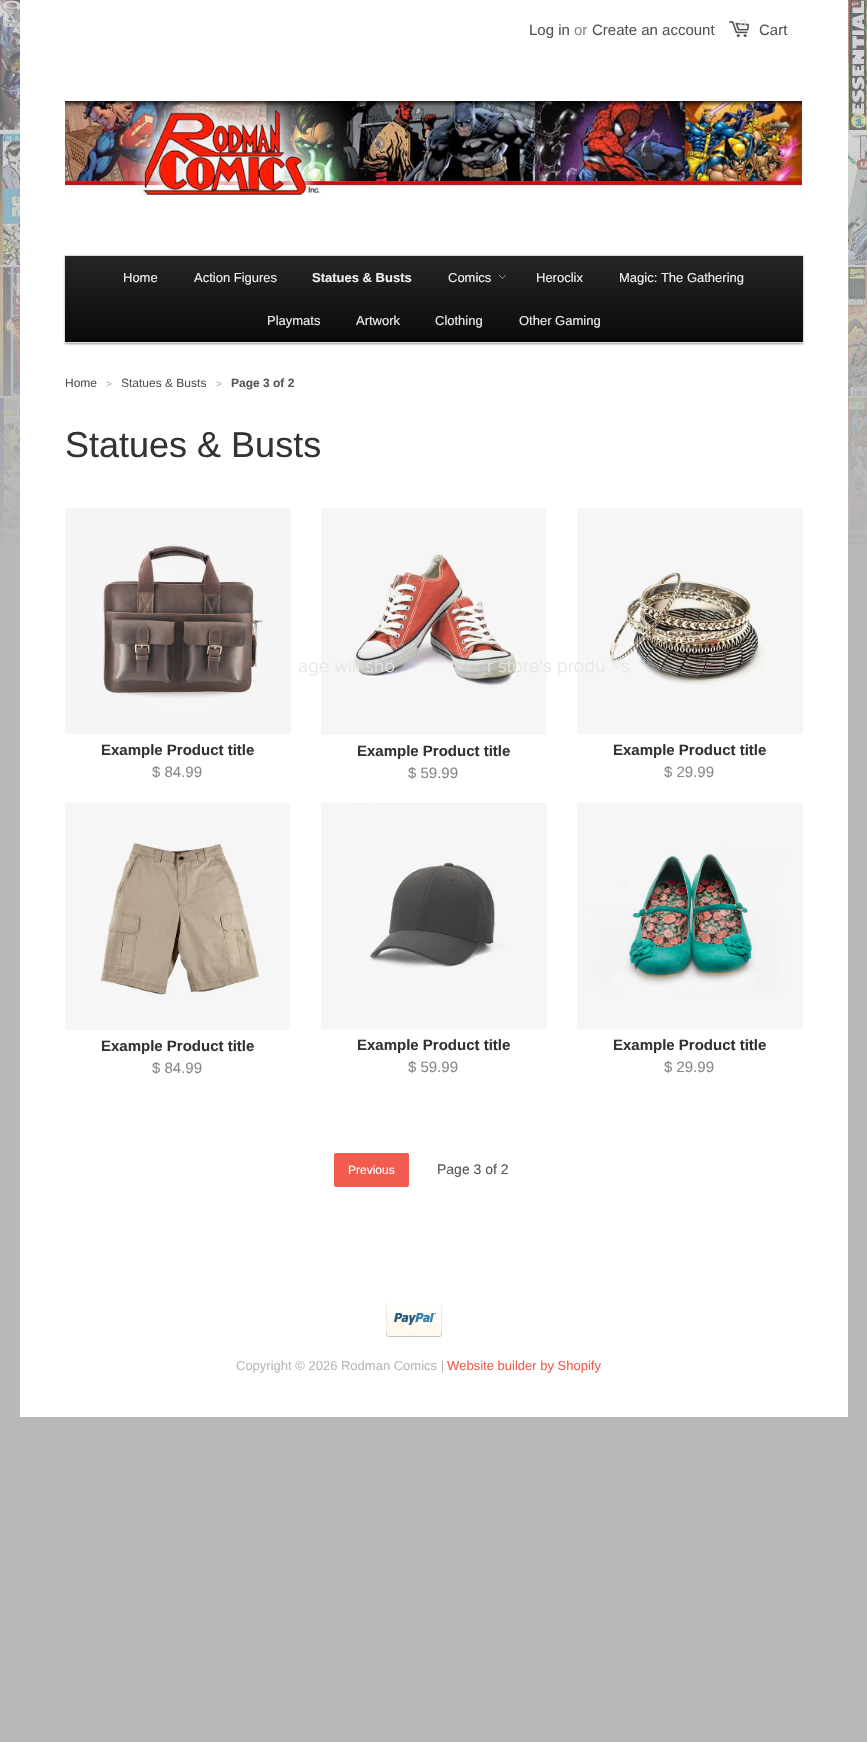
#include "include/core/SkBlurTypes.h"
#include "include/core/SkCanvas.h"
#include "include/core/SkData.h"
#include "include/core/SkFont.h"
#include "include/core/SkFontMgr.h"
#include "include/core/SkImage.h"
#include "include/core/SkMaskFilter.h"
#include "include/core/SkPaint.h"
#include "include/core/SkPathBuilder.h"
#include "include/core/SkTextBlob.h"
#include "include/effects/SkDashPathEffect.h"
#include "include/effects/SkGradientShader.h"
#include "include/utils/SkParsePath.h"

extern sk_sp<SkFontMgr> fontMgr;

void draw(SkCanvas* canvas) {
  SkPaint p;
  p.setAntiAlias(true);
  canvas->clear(SkColorSetRGB(184, 184, 184));
  canvas->drawImageRect(SkImages::DeferredFromEncodedData(SkData::MakeFromFileName("images/1.png")), SkRect::MakeLTRB(0, 0, 867, 544), SkSamplingOptions());
  p.setColor(SK_ColorWHITE);
  canvas->drawRect(SkRect::MakeLTRB(20, 0, 848, 1417), p);
  canvas->drawImageRect(SkImages::DeferredFromEncodedData(SkData::MakeFromFileName("images/2.png")), SkRect::MakeLTRB(729, 21, 749, 37), SkSamplingOptions());
  canvas->drawImageRect(SkImages::DeferredFromEncodedData(SkData::MakeFromFileName("images/3.png")), SkRect::MakeLTRB(65, 101, 802, 195), SkSamplingOptions());
  p.setColor(SkColorSetARGB(102, 0, 0, 0));
  p.setMaskFilter(SkMaskFilter::MakeBlur(kNormal_SkBlurStyle, 1));
  canvas->drawRect(SkRect::MakeLTRB(65, 256, 803, 344), p);
  p.setMaskFilter(nullptr);
  {
    const SkColor colors[] = {SkColorSetRGB(37, 37, 37), SkColorSetRGB(10, 10, 10)};
    const float stops[] = {0, 1};
    const SkPoint ends[] = {{434, 256}, {434, 342}};
    p.setShader(SkGradientShader::MakeLinear(ends, colors, stops, 2, SkTileMode::kClamp));
    p.setAlpha(255);
  }
  canvas->drawRect(SkRect::MakeLTRB(65, 256, 803, 342), p);
  p.setShader(nullptr);
  p.setColor(SkColorSetRGB(221, 221, 221));
  canvas->drawRect(SkRect::MakeLTRB(65, 255, 803, 256), p);
  canvas->drawRect(SkRect::MakeLTRB(65, 342, 803, 343), p);
  canvas->drawImageRect(SkImages::DeferredFromEncodedData(SkData::MakeFromFileName("images/4.png")), SkRect::MakeLTRB(499, 275, 506, 279), SkSamplingOptions());
  canvas->drawImageRect(SkImages::DeferredFromEncodedData(SkData::MakeFromFileName("images/5.png")), SkRect::MakeLTRB(65, 508, 291, 734), SkSamplingOptions());
  canvas->drawImageRect(SkImages::DeferredFromEncodedData(SkData::MakeFromFileName("images/6.png")), SkRect::MakeLTRB(321, 508, 546, 735), SkSamplingOptions());
  canvas->drawImageRect(SkImages::DeferredFromEncodedData(SkData::MakeFromFileName("images/7.png")), SkRect::MakeLTRB(577, 508, 803, 734), SkSamplingOptions());
  canvas->drawImageRect(SkImages::DeferredFromEncodedData(SkData::MakeFromFileName("images/8.png")), SkRect::MakeLTRB(65, 803, 290, 1030), SkSamplingOptions());
  canvas->drawImageRect(SkImages::DeferredFromEncodedData(SkData::MakeFromFileName("images/9.png")), SkRect::MakeLTRB(321, 803, 547, 1029), SkSamplingOptions());
  canvas->drawImageRect(SkImages::DeferredFromEncodedData(SkData::MakeFromFileName("images/10.png")), SkRect::MakeLTRB(577, 803, 803, 1029), SkSamplingOptions());
  p.setColor(SkColorSetRGB(244, 91, 79));
  canvas->drawRoundRect(SkRect::MakeLTRB(334, 1153, 409, 1187), 2, 2, p);
  canvas->drawImageRect(SkImages::DeferredFromEncodedData(SkData::MakeFromFileName("images/11.png")), SkRect::MakeLTRB(386, 1302, 442, 1337), SkSamplingOptions());
  SkFont font1(fontMgr->matchFamilyStyle("Liberation Sans", SkFontStyle::Normal()), 15);
  font1.setSubpixel(true);
  p.setColor(SkColorSetRGB(85, 85, 85));
  canvas->drawString("Log in", 529, 35, font1, p);
  p.setColor(SkColorSetRGB(136, 136, 136));
  canvas->drawString("or", 574, 35, font1, p);
  p.setColor(SkColorSetRGB(85, 85, 85));
  canvas->drawString("Create an account", 592, 35, font1, p);
  SkFont font2(fontMgr->matchFamilyStyle("Liberation Sans", SkFontStyle::Normal()), 11);
  font2.setSubpixel(true);
  p.setColor(SkColorSetRGB(223, 223, 223));
  canvas->drawString("0", 740, 27, font2, p);
  p.setColor(SkColorSetRGB(85, 85, 85));
  canvas->drawString("Cart", 759, 35, font1, p);
  SkFont font3(fontMgr->matchFamilyStyle("Liberation Sans", SkFontStyle::Normal()), 13);
  font3.setSubpixel(true);
  p.setColor(SkColorSetRGB(238, 238, 238));
  canvas->drawString("Home", 123, 282, font3, p);
  canvas->drawString("Action Figures", 194, 282, font3, p);
  SkFont font4(fontMgr->matchFamilyStyle("Liberation Sans", SkFontStyle::Bold()), 13);
  font4.setSubpixel(true);
  canvas->drawString("Statues & Busts", 312, 282, font4, p);
  canvas->drawString("Comics", 448, 282, font3, p);
  canvas->drawString("Heroclix", 536, 282, font3, p);
  canvas->drawString("Magic: The Gathering", 619, 282, font3, p);
  canvas->drawString("Playmats", 267, 325, font3, p);
  canvas->drawString("Artwork", 356, 325, font3, p);
  canvas->drawString("Clothing", 435, 325, font3, p);
  canvas->drawString("Other Gaming", 519, 325, font3, p);
  SkFont font5(fontMgr->matchFamilyStyle("Liberation Sans", SkFontStyle::Normal()), 12);
  font5.setSubpixel(true);
  p.setColor(SkColorSetRGB(85, 85, 85));
  canvas->drawString("Home", 65, 387, font5, p);
  SkFont font6(fontMgr->matchFamilyStyle("Liberation Sans", SkFontStyle::Normal()), 10);
  font6.setSubpixel(true);
  p.setColor(SkColorSetRGB(170, 170, 170));
  canvas->drawString(">", 106, 387, font6, p);
  p.setColor(SkColorSetRGB(85, 85, 85));
  canvas->drawString("Statues & Busts", 121, 387, font5, p);
  p.setColor(SkColorSetRGB(170, 170, 170));
  canvas->drawString(">", 216, 387, font6, p);
  SkFont font7(fontMgr->matchFamilyStyle("Liberation Sans", SkFontStyle::Bold()), 12);
  font7.setSubpixel(true);
  p.setColor(SkColorSetRGB(85, 85, 85));
  canvas->drawString("Page 3 of 2", 231, 387, font7, p);
  SkFont font8(fontMgr->matchFamilyStyle("Liberation Sans", SkFontStyle::Normal()), 36);
  font8.setSubpixel(true);
  p.setColor(SkColorSetRGB(51, 51, 51));
  canvas->drawString("Statues & Busts", 65, 457, font8, p);
  SkFont font9(fontMgr->matchFamilyStyle("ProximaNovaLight", SkFontStyle(300, SkFontStyle::kNormal_Width, SkFontStyle::kUpright_Slant)), 19);
  font9.setSubpixel(true);
  p.setColor(SkColorSetRGB(230, 229, 228));
  canvas->drawString("age will sho", 298, 672, font9, p);
  canvas->drawString("r store's produ", 487, 672, font9, p);
  canvas->drawString("s", 621, 672, font9, p);
  SkFont font10(fontMgr->matchFamilyStyle("Liberation Sans", SkFontStyle::Bold()), 15);
  font10.setSubpixel(true);
  p.setColor(SkColorSetRGB(51, 51, 51));
  canvas->drawString("Example Product title", 101, 755, font10, p);
  p.setColor(SkColorSetRGB(136, 136, 136));
  canvas->drawString("$ 84.99", 152, 777, font1, p);
  p.setColor(SkColorSetRGB(51, 51, 51));
  canvas->drawString("Example Product title", 357, 756, font10, p);
  p.setColor(SkColorSetRGB(136, 136, 136));
  canvas->drawString("$ 59.99", 408, 778, font1, p);
  p.setColor(SkColorSetRGB(51, 51, 51));
  canvas->drawString("Example Product title", 613, 755, font10, p);
  p.setColor(SkColorSetRGB(136, 136, 136));
  canvas->drawString("$ 29.99", 664, 777, font1, p);
  p.setColor(SkColorSetRGB(51, 51, 51));
  canvas->drawString("Example Product title", 101, 1051, font10, p);
  p.setColor(SkColorSetRGB(136, 136, 136));
  canvas->drawString("$ 84.99", 152, 1073, font1, p);
  p.setColor(SkColorSetRGB(51, 51, 51));
  canvas->drawString("Example Product title", 357, 1050, font10, p);
  p.setColor(SkColorSetRGB(136, 136, 136));
  canvas->drawString("$ 59.99", 408, 1072, font1, p);
  p.setColor(SkColorSetRGB(51, 51, 51));
  canvas->drawString("Example Product title", 613, 1050, font10, p);
  p.setColor(SkColorSetRGB(136, 136, 136));
  canvas->drawString("$ 29.99", 664, 1072, font1, p);
  p.setColor(SK_ColorWHITE);
  canvas->drawString("Previous", 348, 1174, font5, p);
  SkFont font11(fontMgr->matchFamilyStyle("Liberation Sans", SkFontStyle::Normal()), 14);
  font11.setSubpixel(true);
  p.setColor(SkColorSetRGB(85, 85, 85));
  canvas->drawString("Page 3 of 2", 437, 1174, font11, p);
  p.setColor(SkColorSetRGB(184, 184, 184));
  canvas->drawString("Copyright © 2026 Rodman Comics |", 236, 1370, font3, p);
  p.setColor(SkColorSetRGB(244, 91, 79));
  canvas->drawString("Website builder by Shopify", 447, 1370, font3, p);
}
